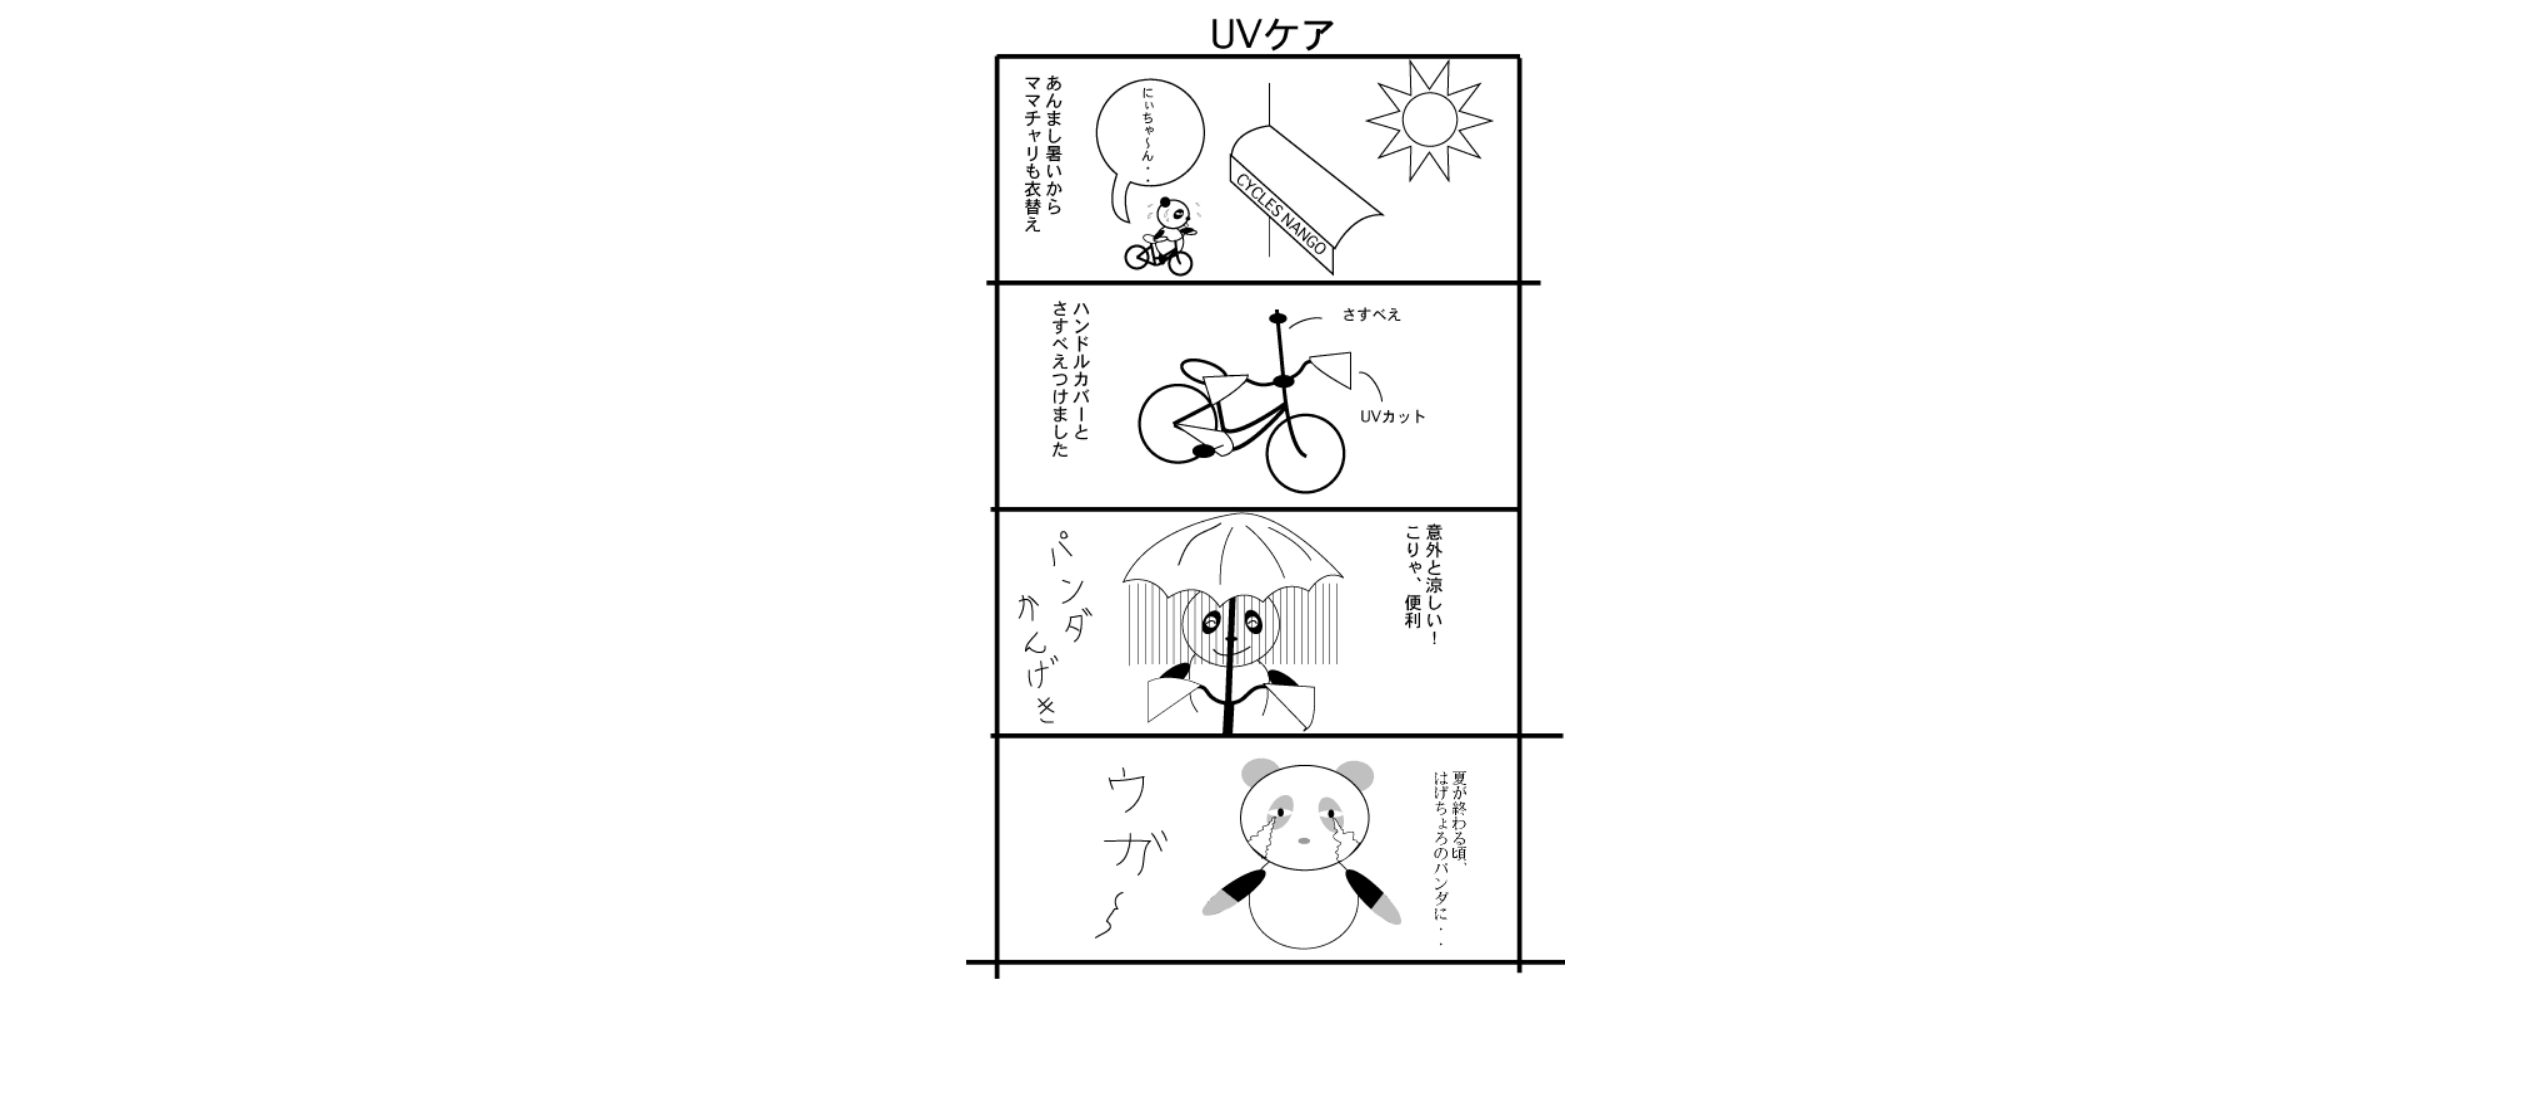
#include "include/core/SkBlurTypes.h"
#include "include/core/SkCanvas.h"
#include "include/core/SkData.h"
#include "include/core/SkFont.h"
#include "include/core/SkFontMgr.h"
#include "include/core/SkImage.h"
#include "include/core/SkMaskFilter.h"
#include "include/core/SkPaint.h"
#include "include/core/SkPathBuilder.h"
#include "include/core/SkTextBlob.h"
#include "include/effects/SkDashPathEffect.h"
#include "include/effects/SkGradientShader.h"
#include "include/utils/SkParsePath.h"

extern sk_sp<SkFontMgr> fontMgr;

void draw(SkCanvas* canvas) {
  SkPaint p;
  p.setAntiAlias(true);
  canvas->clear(SK_ColorWHITE);
  canvas->drawImageRect(SkImages::DeferredFromEncodedData(SkData::MakeFromFileName("images/1.png")), SkRect::MakeLTRB(966, 17, 1565, 979), SkSamplingOptions());
}
